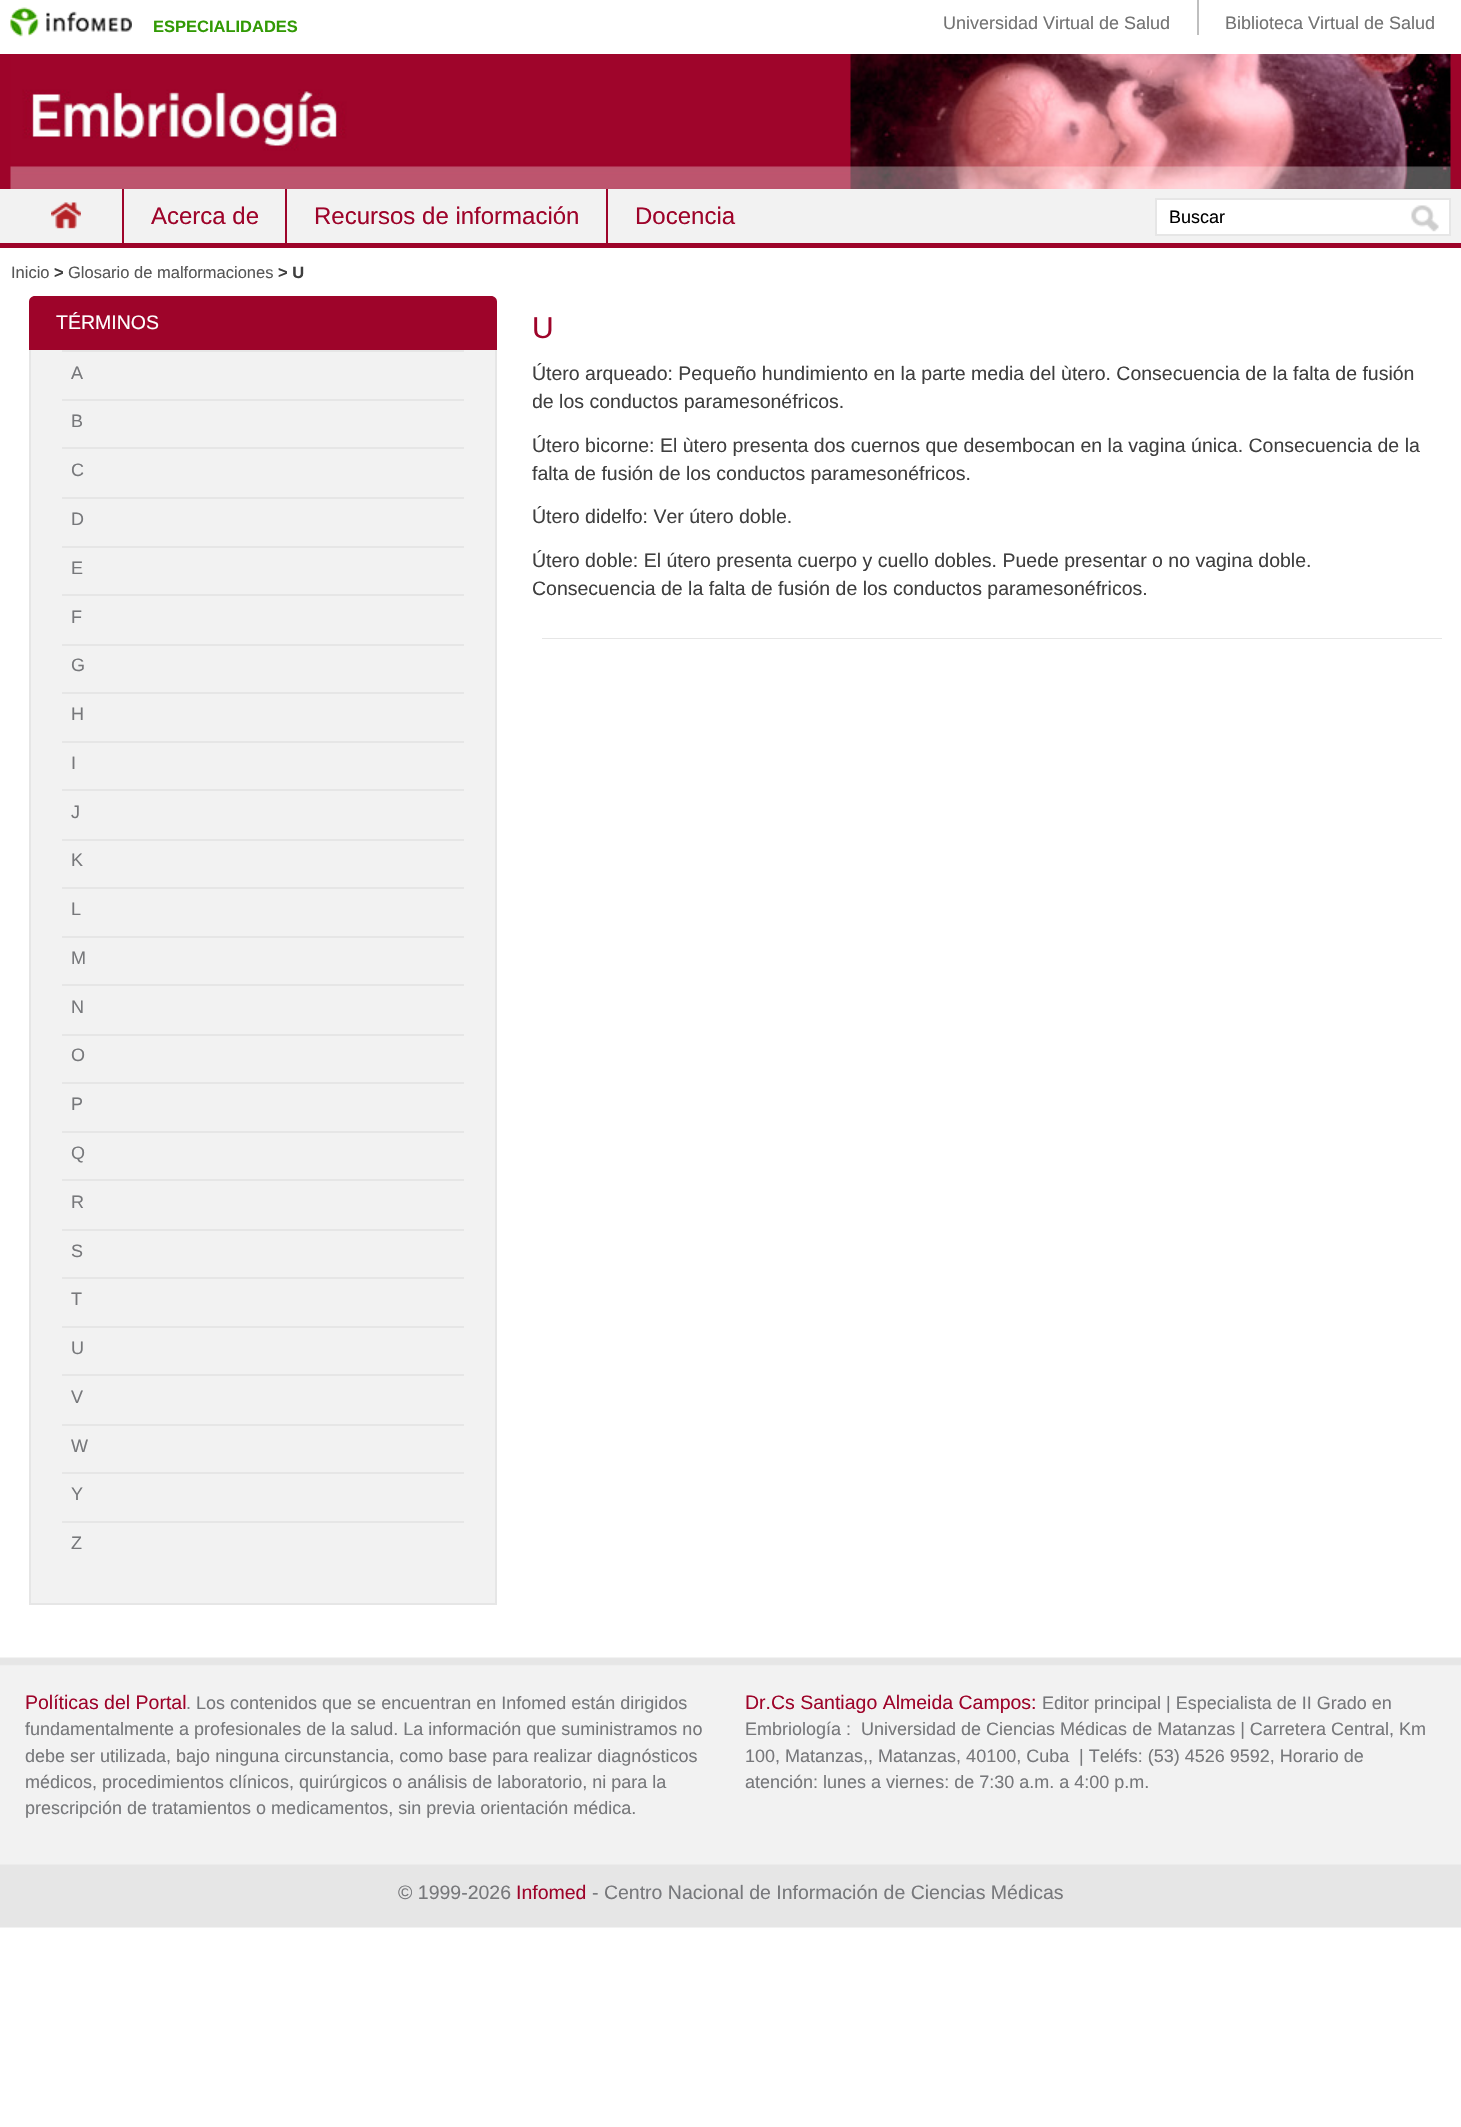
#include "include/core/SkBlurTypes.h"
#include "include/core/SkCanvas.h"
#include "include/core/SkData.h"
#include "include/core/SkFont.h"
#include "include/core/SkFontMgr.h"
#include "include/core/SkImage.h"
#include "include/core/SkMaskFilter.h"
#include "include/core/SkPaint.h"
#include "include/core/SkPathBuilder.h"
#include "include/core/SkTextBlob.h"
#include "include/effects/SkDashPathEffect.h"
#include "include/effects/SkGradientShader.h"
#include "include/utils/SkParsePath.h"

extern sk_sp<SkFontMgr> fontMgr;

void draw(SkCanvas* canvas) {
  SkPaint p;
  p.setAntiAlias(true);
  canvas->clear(SK_ColorWHITE);
  canvas->drawImageRect(SkImages::DeferredFromEncodedData(SkData::MakeFromFileName("images/1.png")), SkRect::MakeLTRB(0, 1657, 1461, 1928), SkSamplingOptions());
  canvas->drawImageRect(SkImages::DeferredFromEncodedData(SkData::MakeFromFileName("images/2.png")), SkRect::MakeLTRB(10, 7, 132, 37), SkSamplingOptions());
  p.setColor(SkColorSetRGB(191, 191, 191));
  canvas->drawRect(SkRect::MakeLTRB(1197, 0, 1199, 35), p);
  p.setColor(SkColorSetRGB(158, 4, 42));
  canvas->drawRect(SkRect::MakeLTRB(0, 54, 1461, 189), p);
  canvas->drawImageRect(SkImages::DeferredFromEncodedData(SkData::MakeFromFileName("images/3.png")), SkRect::MakeLTRB(10, 54, 1451, 189), SkSamplingOptions());
  p.setColor(SkColorSetRGB(242, 242, 242));
  canvas->drawRect(SkRect::MakeLTRB(0, 189, 1461, 243), p);
  p.setColor(SkColorSetRGB(158, 4, 42));
  canvas->drawRect(SkRect::MakeLTRB(0, 243, 1461, 248), p);
  canvas->drawImageRect(SkImages::DeferredFromEncodedData(SkData::MakeFromFileName("images/4.png")), SkRect::MakeLTRB(51, 202, 81, 229), SkSamplingOptions());
  canvas->drawRect(SkRect::MakeLTRB(122, 189, 124, 243), p);
  canvas->drawRect(SkRect::MakeLTRB(285, 189, 287, 243), p);
  canvas->drawRect(SkRect::MakeLTRB(606, 189, 608, 243), p);
  p.setColor(SK_ColorWHITE);
  canvas->drawRect(SkRect::MakeLTRB(1156, 199, 1450, 235), p);
  p.setStyle(SkPaint::kStroke_Style);
  p.setStrokeWidth(2);
  p.setColor(SkColorSetRGB(230, 230, 230));
  canvas->drawRect(SkRect::MakeLTRB(1156, 199, 1450, 235), p);
  canvas->drawImageRect(SkImages::DeferredFromEncodedData(SkData::MakeFromFileName("images/5.png")), SkRect::MakeLTRB(1411, 205, 1439, 232), SkSamplingOptions());
  p.setStyle(SkPaint::kFill_Style);
  p.setColor(SkColorSetRGB(242, 242, 242));
  canvas->drawPath(SkPathBuilder().moveTo(37, 297).lineTo(489, 297).cubicTo(493, 297, 496, 300, 496, 304).lineTo(496, 1604).lineTo(30, 1604).lineTo(30, 304).cubicTo(30, 300, 33, 297, 37, 297).close().detach(), p);
  p.setStyle(SkPaint::kStroke_Style);
  p.setColor(SkColorSetRGB(230, 230, 230));
  canvas->drawPath(SkPathBuilder().moveTo(37, 297).lineTo(489, 297).cubicTo(493, 297, 496, 300, 496, 304).lineTo(496, 1604).lineTo(30, 1604).lineTo(30, 304).cubicTo(30, 300, 33, 297, 37, 297).close().detach(), p);
  p.setStyle(SkPaint::kFill_Style);
  p.setColor(SkColorSetRGB(158, 4, 42));
  canvas->drawPath(SkPathBuilder().moveTo(35, 296).lineTo(491, 296).cubicTo(494.5f, 296, 497, 298.5f, 497, 302).lineTo(497, 350).lineTo(29, 350).lineTo(29, 302).cubicTo(29, 298.5f, 31.5f, 296, 35, 296).close().detach(), p);
  p.setColor(SkColorSetRGB(230, 230, 230));
  canvas->drawRect(SkRect::MakeLTRB(62, 350, 464, 352), p);
  canvas->drawRect(SkRect::MakeLTRB(62, 399, 464, 401), p);
  canvas->drawRect(SkRect::MakeLTRB(62, 447, 464, 449), p);
  canvas->drawRect(SkRect::MakeLTRB(62, 497, 464, 499), p);
  canvas->drawRect(SkRect::MakeLTRB(62, 546, 464, 548), p);
  canvas->drawRect(SkRect::MakeLTRB(62, 594, 464, 596), p);
  canvas->drawRect(SkRect::MakeLTRB(62, 644, 464, 646), p);
  canvas->drawRect(SkRect::MakeLTRB(62, 692, 464, 694), p);
  canvas->drawRect(SkRect::MakeLTRB(62, 741, 464, 743), p);
  canvas->drawRect(SkRect::MakeLTRB(62, 789, 464, 791), p);
  canvas->drawRect(SkRect::MakeLTRB(62, 839, 464, 841), p);
  canvas->drawRect(SkRect::MakeLTRB(62, 887, 464, 889), p);
  canvas->drawRect(SkRect::MakeLTRB(62, 936, 464, 938), p);
  canvas->drawRect(SkRect::MakeLTRB(62, 984, 464, 986), p);
  canvas->drawRect(SkRect::MakeLTRB(62, 1034, 464, 1036), p);
  canvas->drawRect(SkRect::MakeLTRB(62, 1082, 464, 1084), p);
  canvas->drawRect(SkRect::MakeLTRB(62, 1131, 464, 1133), p);
  canvas->drawRect(SkRect::MakeLTRB(62, 1179, 464, 1181), p);
  canvas->drawRect(SkRect::MakeLTRB(62, 1229, 464, 1231), p);
  canvas->drawRect(SkRect::MakeLTRB(62, 1277, 464, 1279), p);
  canvas->drawRect(SkRect::MakeLTRB(62, 1326, 464, 1328), p);
  canvas->drawRect(SkRect::MakeLTRB(62, 1374, 464, 1376), p);
  canvas->drawRect(SkRect::MakeLTRB(62, 1424, 464, 1426), p);
  canvas->drawRect(SkRect::MakeLTRB(62, 1472, 464, 1474), p);
  canvas->drawRect(SkRect::MakeLTRB(62, 1521, 464, 1523), p);
  canvas->drawRect(SkRect::MakeLTRB(542, 638, 1442, 639), p);
  SkFont font1(fontMgr->matchFamilyStyle("Liberation Sans", SkFontStyle::Bold()), 16.5f);
  font1.setSubpixel(true);
  p.setColor(SkColorSetRGB(50, 154, 5));
  canvas->drawString("ESPECIALIDADES", 153, 32, font1, p);
  SkFont font2(fontMgr->matchFamilyStyle("Liberation Sans", SkFontStyle::Normal()), 18);
  font2.setSubpixel(true);
  p.setColor(SkColorSetRGB(115, 115, 115));
  canvas->drawString("Universidad Virtual de Salud", 943, 29, font2, p);
  canvas->drawString("Biblioteca Virtual de Salud", 1225, 29, font2, p);
  SkFont font3(fontMgr->matchFamilyStyle("Liberation Sans", SkFontStyle::Normal()), 24);
  font3.setSubpixel(true);
  p.setColor(SkColorSetRGB(158, 4, 42));
  canvas->drawString("Acerca de", 151, 224, font3, p);
  canvas->drawString("Recursos de información", 314, 224, font3, p);
  canvas->drawString("Docencia", 635, 224, font3, p);
  p.setColor(SK_ColorBLACK);
  canvas->drawString("Buscar", 1169, 223, font2, p);
  SkFont font4(fontMgr->matchFamilyStyle("Liberation Sans", SkFontStyle::Normal()), 16.5f);
  font4.setSubpixel(true);
  p.setColor(SkColorSetRGB(87, 87, 87));
  canvas->drawString("Inicio", 11, 278, font4, p);
  p.setColor(SkColorSetRGB(63, 63, 63));
  canvas->drawString(">", 54, 278, font1, p);
  p.setColor(SkColorSetRGB(87, 87, 87));
  canvas->drawString("Glosario de malformaciones", 68, 278, font4, p);
  p.setColor(SkColorSetRGB(63, 63, 63));
  canvas->drawString("> U", 278, 278, font1, p);
  SkFont font5(fontMgr->matchFamilyStyle("Liberation Sans", SkFontStyle::Normal()), 19.5f);
  font5.setSubpixel(true);
  p.setColor(SK_ColorWHITE);
  canvas->drawString("TÉRMINOS", 56, 329, font5, p);
  p.setColor(SkColorSetRGB(119, 120, 123));
  canvas->drawString("A", 71, 379, font2, p);
  canvas->drawString("B", 71, 427, font2, p);
  canvas->drawString("C", 71, 476, font2, p);
  canvas->drawString("D", 71, 525, font2, p);
  canvas->drawString("E", 71, 574, font2, p);
  canvas->drawString("F", 71, 623, font2, p);
  canvas->drawString("G", 71, 671, font2, p);
  canvas->drawString("H", 71, 720, font2, p);
  canvas->drawString("I", 71, 769, font2, p);
  canvas->drawString("J", 71, 818, font2, p);
  canvas->drawString("K", 71, 866, font2, p);
  canvas->drawString("L", 71, 915, font2, p);
  canvas->drawString("M", 71, 964, font2, p);
  canvas->drawString("N", 71, 1013, font2, p);
  canvas->drawString("O", 71, 1061, font2, p);
  canvas->drawString("P", 71, 1110, font2, p);
  canvas->drawString("Q", 71, 1159, font2, p);
  canvas->drawString("R", 71, 1208, font2, p);
  canvas->drawString("S", 71, 1257, font2, p);
  canvas->drawString("T", 71, 1305, font2, p);
  canvas->drawString("U", 71, 1354, font2, p);
  canvas->drawString("V", 71, 1403, font2, p);
  canvas->drawString("W", 71, 1452, font2, p);
  canvas->drawString("Y", 71, 1500, font2, p);
  canvas->drawString("Z", 71, 1549, font2, p);
  SkFont font6(fontMgr->matchFamilyStyle("Liberation Sans", SkFontStyle::Normal()), 30);
  font6.setSubpixel(true);
  p.setColor(SkColorSetRGB(158, 4, 42));
  canvas->drawString("U", 532, 338, font6, p);
  p.setColor(SkColorSetRGB(63, 63, 63));
  canvas->drawString("Útero arqueado: Pequeño hundimiento en la parte media del ùtero. Consecuencia de la falta de fusión", 532, 380, font5, p);
  canvas->save();
  canvas->clipRect(SkRect::MakeLTRB(533, 296, 1451, 639));
  canvas->drawString("de los conductos paramesonéfricos.", 532, 408, font5, p);
  canvas->restore();
  canvas->drawString("Útero bicorne: El ùtero presenta dos cuernos que desembocan en la vagina única. Consecuencia de la", 532, 452, font5, p);
  canvas->drawString("falta de fusión de los conductos paramesonéfricos.", 532, 480, font5, p);
  canvas->drawString("Útero didelfo: Ver útero doble.", 532, 523, font5, p);
  canvas->drawString("Útero doble: El útero presenta cuerpo y cuello dobles. Puede presentar o no vagina doble.", 532, 567, font5, p);
  canvas->save();
  canvas->clipRect(SkRect::MakeLTRB(533, 296, 1451, 639));
  canvas->drawString("Consecuencia de la falta de fusión de los conductos paramesonéfricos.", 532, 595, font5, p);
  canvas->restore();
  p.setColor(SkColorSetRGB(158, 4, 42));
  canvas->drawString("Políticas del Portal", 25, 1709, font5, p);
  p.setColor(SkColorSetRGB(119, 120, 123));
  canvas->drawString(". Los contenidos que se encuentran en Infomed están dirigidos", 186, 1709, font2, p);
  canvas->drawString("fundamentalmente a profesionales de la salud. La información que suministramos no", 25, 1735, font2, p);
  canvas->drawString("debe ser utilizada, bajo ninguna circunstancia, como base para realizar diagnósticos", 25, 1762, font2, p);
  canvas->drawString("médicos, procedimientos clínicos, quirúrgicos o análisis de laboratorio, ni para la", 25, 1788, font2, p);
  canvas->drawString("prescripción de tratamientos o medicamentos, sin previa orientación médica.", 25, 1814, font2, p);
  p.setColor(SkColorSetRGB(158, 4, 42));
  canvas->drawString("Dr.Cs Santiago Almeida Campos:", 745, 1709, font5, p);
  p.setColor(SkColorSetRGB(119, 120, 123));
  canvas->drawString("Editor principal | Especialista de II Grado en", 1042, 1709, font2, p);
  canvas->drawString("Embriología :", 745, 1735, font2, p);
  canvas->drawString("Universidad de Ciencias Médicas de Matanzas | Carretera Central, Km", 861, 1735, font2, p);
  canvas->drawString("100, Matanzas,, Matanzas, 40100, Cuba", 745, 1762, font2, p);
  canvas->drawString("| Teléfs: (53) 4526 9592, Horario de", 1079, 1762, font2, p);
  canvas->drawString("atención: lunes a viernes: de 7:30 a.m. a 4:00 p.m.", 745, 1788, font2, p);
  canvas->drawString("© 1999-2026", 398, 1899, font5, p);
  p.setColor(SkColorSetRGB(158, 4, 42));
  canvas->drawString("Infomed", 516, 1899, font5, p);
  p.setColor(SkColorSetRGB(119, 120, 123));
  canvas->drawString("- Centro Nacional de Información de Ciencias Médicas", 592, 1899, font5, p);
}
